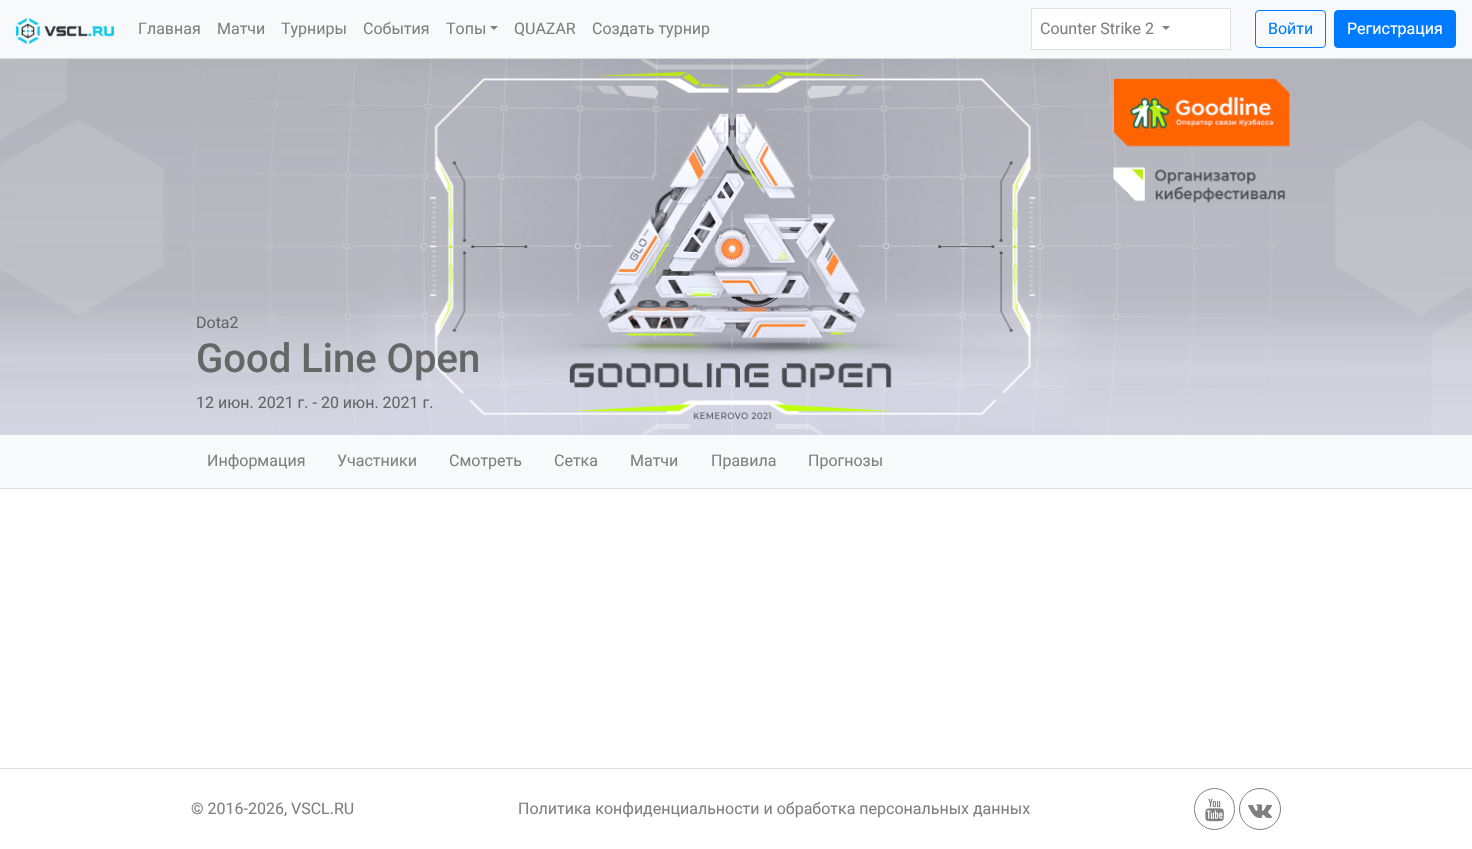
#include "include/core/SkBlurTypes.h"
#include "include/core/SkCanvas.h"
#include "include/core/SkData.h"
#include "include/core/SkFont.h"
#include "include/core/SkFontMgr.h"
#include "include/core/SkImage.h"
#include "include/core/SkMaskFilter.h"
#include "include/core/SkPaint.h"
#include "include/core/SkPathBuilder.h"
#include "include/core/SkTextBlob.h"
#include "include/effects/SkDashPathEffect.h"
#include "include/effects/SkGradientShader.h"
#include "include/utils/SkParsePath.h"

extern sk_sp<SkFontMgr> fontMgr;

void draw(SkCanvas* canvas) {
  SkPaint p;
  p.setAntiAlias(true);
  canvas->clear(SK_ColorWHITE);
  p.setColor(SkColorSetRGB(248, 249, 250));
  canvas->drawRect(SkRect::MakeLTRB(0, 0, 1472, 58), p);
  p.setColor(SkColorSetRGB(217, 218, 219));
  canvas->drawRect(SkRect::MakeLTRB(0, 58, 1472, 59), p);
  canvas->drawImageRect(SkImages::DeferredFromEncodedData(SkData::MakeFromFileName("images/1.png")), SkRect::MakeLTRB(16, 17, 114, 44), SkSamplingOptions());
  p.setColor(SkColorSetRGB(124, 125, 125));
  canvas->drawPath(SkPathBuilder().moveTo(490, 26).lineTo(498, 26).lineTo(494, 30).close().detach(), p);
  p.setColor(SK_ColorWHITE);
  canvas->drawRect(SkRect::MakeLTRB(1031.5f, 8.5f, 1230.5f, 49.5f), p);
  p.setStyle(SkPaint::kStroke_Style);
  p.setStrokeWidth(1);
  p.setColor(SkColorSetRGB(222, 226, 230));
  canvas->drawRect(SkRect::MakeLTRB(1031.5f, 8.5f, 1230.5f, 49.5f), p);
  p.setStyle(SkPaint::kFill_Style);
  p.setColor(SkColorSetRGB(128, 128, 128));
  canvas->drawPath(SkPathBuilder().moveTo(1162, 26).lineTo(1170, 26).lineTo(1166, 30).close().detach(), p);
  p.setStyle(SkPaint::kStroke_Style);
  p.setColor(SkColorSetRGB(0, 123, 255));
  canvas->drawRoundRect(SkRect::MakeLTRB(1255.5f, 10.5f, 1325.5f, 47.5f), 3.5f, 3.5f, p);
  p.setStyle(SkPaint::kFill_Style);
  canvas->drawRoundRect(SkRect::MakeLTRB(1334.5f, 10.5f, 1455.5f, 47.5f), 3.5f, 3.5f, p);
  p.setStyle(SkPaint::kStroke_Style);
  canvas->drawRoundRect(SkRect::MakeLTRB(1334.5f, 10.5f, 1455.5f, 47.5f), 3.5f, 3.5f, p);
  canvas->drawImageRect(SkImages::DeferredFromEncodedData(SkData::MakeFromFileName("images/2.png")), SkRect::MakeLTRB(0, 59, 1472, 435), SkSamplingOptions());
  p.setStyle(SkPaint::kFill_Style);
  p.setColor(SkColorSetRGB(248, 249, 250));
  canvas->drawRect(SkRect::MakeLTRB(0, 435, 1472, 488), p);
  p.setColor(SkColorSetRGB(217, 218, 219));
  canvas->drawRect(SkRect::MakeLTRB(0, 488, 1472, 489), p);
  p.setColor(SkColorSetRGB(223, 223, 223));
  canvas->drawRect(SkRect::MakeLTRB(0, 768, 1472, 769), p);
  p.setStyle(SkPaint::kStroke_Style);
  p.setColor(SkColorSetRGB(128, 128, 128));
  canvas->drawRoundRect(SkRect::MakeLTRB(1194.5f, 788.5f, 1234.5f, 829.5f), 20, 20, p);
  canvas->drawImageRect(SkImages::DeferredFromEncodedData(SkData::MakeFromFileName("images/3.png")), SkRect::MakeLTRB(1205, 798, 1224, 822), SkSamplingOptions());
  canvas->drawCircle(1260, 809, 20.5f, p);
  canvas->drawImageRect(SkImages::DeferredFromEncodedData(SkData::MakeFromFileName("images/4.png")), SkRect::MakeLTRB(1248, 804, 1272, 818), SkSamplingOptions());
  SkFont font1(fontMgr->matchFamilyStyle("Roboto", SkFontStyle::Normal()), 16);
  font1.setSubpixel(true);
  p.setStyle(SkPaint::kFill_Style);
  canvas->drawString("Главная", 138, 34, font1, p);
  canvas->drawString("Матчи", 217, 34, font1, p);
  canvas->drawString("Турниры", 281, 34, font1, p);
  canvas->drawString("События", 363, 34, font1, p);
  canvas->drawString("Топы", 446, 34, font1, p);
  canvas->drawString("QUAZAR", 514, 34, font1, p);
  canvas->drawString("Создать турнир", 592, 34, font1, p);
  canvas->drawString("Counter Strike 2", 1040, 34, font1, p);
  p.setColor(SkColorSetRGB(0, 123, 255));
  canvas->drawString("Войти", 1268, 34, font1, p);
  p.setColor(SK_ColorWHITE);
  canvas->drawString("Регистрация", 1347, 34, font1, p);
  p.setColor(SkColorSetRGB(102, 102, 102));
  canvas->drawString("Dota2", 196, 328, font1, p);
  SkFont font2(fontMgr->matchFamilyStyle("Roboto", SkFontStyle(500, SkFontStyle::kNormal_Width, SkFontStyle::kUpright_Slant)), 40);
  font2.setSubpixel(true);
  canvas->drawString("Good Line Open", 196, 372, font2, p);
  canvas->drawString("12 июн. 2021 г. - 20 июн. 2021 г.", 196, 408, font1, p);
  p.setColor(SkColorSetRGB(128, 128, 128));
  canvas->drawString("Информация", 207, 466, font1, p);
  canvas->drawString("Участники", 337, 466, font1, p);
  canvas->drawString("Смотреть", 449, 466, font1, p);
  canvas->drawString("Сетка", 554, 466, font1, p);
  canvas->drawString("Матчи", 630, 466, font1, p);
  canvas->drawString("Правила", 711, 466, font1, p);
  canvas->drawString("Прогнозы", 808, 466, font1, p);
  canvas->drawString("© 2016-2026, VSCL.RU", 191, 814, font1, p);
  canvas->drawString("Политика конфиденциальности и обработка персональных данных", 518, 814, font1, p);
}
